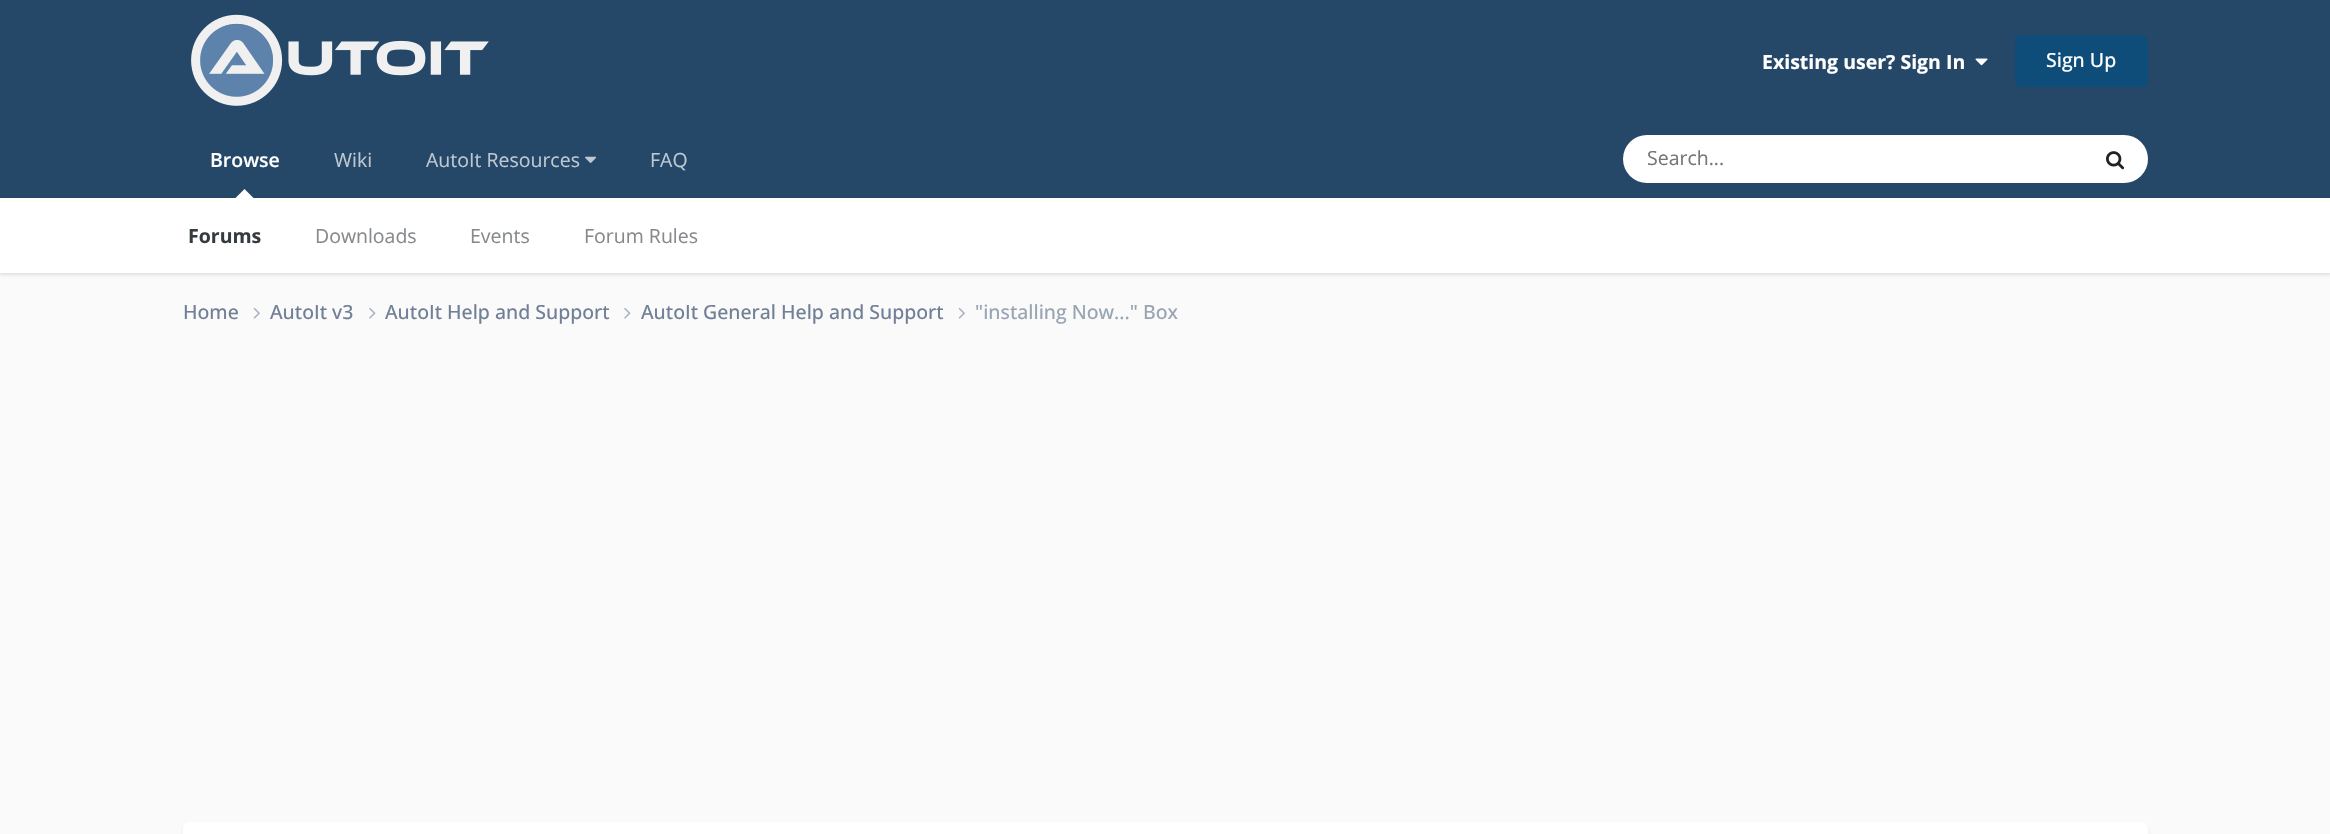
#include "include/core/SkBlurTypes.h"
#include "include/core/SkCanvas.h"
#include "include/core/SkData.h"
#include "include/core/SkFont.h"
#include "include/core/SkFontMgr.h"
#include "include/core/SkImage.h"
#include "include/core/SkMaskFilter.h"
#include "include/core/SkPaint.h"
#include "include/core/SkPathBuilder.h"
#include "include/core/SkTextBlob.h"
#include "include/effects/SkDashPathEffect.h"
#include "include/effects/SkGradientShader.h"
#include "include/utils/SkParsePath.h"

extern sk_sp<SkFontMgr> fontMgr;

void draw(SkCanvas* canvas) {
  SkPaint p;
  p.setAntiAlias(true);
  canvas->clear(SkColorSetRGB(250, 250, 250));
  p.setColor(SkColorSetRGB(37, 71, 104));
  canvas->drawRect(SkRect::MakeLTRB(0, 0, 2330, 198), p);
  canvas->drawImageRect(SkImages::DeferredFromEncodedData(SkData::MakeFromFileName("images/1.png")), SkRect::MakeLTRB(191, 14, 489, 106), SkSamplingOptions());
  canvas->drawImageRect(SkImages::DeferredFromEncodedData(SkData::MakeFromFileName("images/2.png")), SkRect::MakeLTRB(1975, 58, 1988, 66), SkSamplingOptions());
  p.setColor(SkColorSetRGB(14, 76, 121));
  canvas->drawRoundRect(SkRect::MakeLTRB(2015, 35, 2148, 87), 6, 6, p);
  p.setColor(SkColorSetARGB(26, 0, 0, 0));
  p.setMaskFilter(SkMaskFilter::MakeBlur(kNormal_SkBlurStyle, 1.5f));
  canvas->drawRect(SkRect::MakeLTRB(0, 200, 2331, 275), p);
  p.setMaskFilter(nullptr);
  p.setColor(SK_ColorWHITE);
  canvas->drawPath(SkPathBuilder().moveTo(253.5f, 198).lineTo(235.5f, 198).lineTo(244.5f, 189).close().detach(), p);
  canvas->drawImageRect(SkImages::DeferredFromEncodedData(SkData::MakeFromFileName("images/3.png")), SkRect::MakeLTRB(585, 156, 597, 163), SkSamplingOptions());
  canvas->drawRoundRect(SkRect::MakeLTRB(1623, 135, 2148, 183), 24, 24, p);
  canvas->drawImageRect(SkImages::DeferredFromEncodedData(SkData::MakeFromFileName("images/4.png")), SkRect::MakeLTRB(2106, 151, 2125, 170), SkSamplingOptions());
  canvas->drawRect(SkRect::MakeLTRB(0, 198, 2330, 273), p);
  canvas->drawImageRect(SkImages::DeferredFromEncodedData(SkData::MakeFromFileName("images/5.png")), SkRect::MakeLTRB(253, 307, 260, 319), SkSamplingOptions());
  canvas->drawImageRect(SkImages::DeferredFromEncodedData(SkData::MakeFromFileName("images/6.png")), SkRect::MakeLTRB(369, 307, 376, 319), SkSamplingOptions());
  canvas->drawImageRect(SkImages::DeferredFromEncodedData(SkData::MakeFromFileName("images/6.png")), SkRect::MakeLTRB(624, 307, 631, 319), SkSamplingOptions());
  canvas->drawImageRect(SkImages::DeferredFromEncodedData(SkData::MakeFromFileName("images/5.png")), SkRect::MakeLTRB(958, 307, 965, 319), SkSamplingOptions());
  p.setColor(SkColorSetARGB(26, 37, 71, 104));
  p.setMaskFilter(SkMaskFilter::MakeBlur(kNormal_SkBlurStyle, 3));
  canvas->drawRoundRect(SkRect::MakeLTRB(185, 827, 2147, 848), 5, 5, p);
  p.setMaskFilter(nullptr);
  p.setColor(SK_ColorWHITE);
  canvas->drawRoundRect(SkRect::MakeLTRB(183, 822, 2148, 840), 6, 6, p);
  SkFont font1(fontMgr->matchFamilyStyle("Open Sans", SkFontStyle::Bold()), 19.5f);
  font1.setSubpixel(true);
  canvas->drawString("Existing user? Sign In", 1762, 69, font1, p);
  SkFont font2(fontMgr->matchFamilyStyle("Open Sans", SkFontStyle(500, SkFontStyle::kNormal_Width, SkFontStyle::kUpright_Slant)), 19.5f);
  font2.setSubpixel(true);
  canvas->drawString("Sign Up", 2046, 67, font2, p);
  SkFont font3(fontMgr->matchFamilyStyle("Open Sans", SkFontStyle::Normal()), 19.5f);
  font3.setSubpixel(true);
  p.setColor(SkColorSetRGB(190, 200, 210));
  canvas->drawString("Wiki", 334, 167, font3, p);
  canvas->drawString("FAQ", 650, 167, font3, p);
  SkFont font4(fontMgr->matchFamilyStyle("Open Sans", SkFontStyle(600, SkFontStyle::kNormal_Width, SkFontStyle::kUpright_Slant)), 19.5f);
  font4.setSubpixel(true);
  p.setColor(SK_ColorWHITE);
  canvas->drawString("Browse", 210, 167, font4, p);
  p.setColor(SkColorSetRGB(53, 60, 65));
  canvas->drawString("Forums", 188, 243, font1, p);
  p.setColor(SkColorSetRGB(134, 138, 141));
  canvas->drawString("Downloads", 315, 243, font3, p);
  canvas->drawString("Events", 470, 243, font3, p);
  canvas->drawString("Forum Rules", 584, 243, font3, p);
  p.setColor(SkColorSetRGB(190, 200, 210));
  canvas->drawString("AutoIt Resources", 426, 167, font3, p);
  p.setColor(SkColorSetRGB(117, 117, 117));
  canvas->drawString("Search...", 1647, 165, font3, p);
  p.setColor(SkColorSetRGB(113, 128, 150));
  canvas->drawString("Home", 183, 319, font2, p);
  canvas->drawString("AutoIt v3", 270, 319, font2, p);
  canvas->drawString("AutoIt Help and Support", 385, 319, font2, p);
  canvas->drawString("AutoIt General Help and Support", 641, 319, font2, p);
  p.setColor(SkColorSetRGB(154, 165, 180));
  canvas->drawString("\"installing Now...\" Box", 975, 319, font2, p);
}
